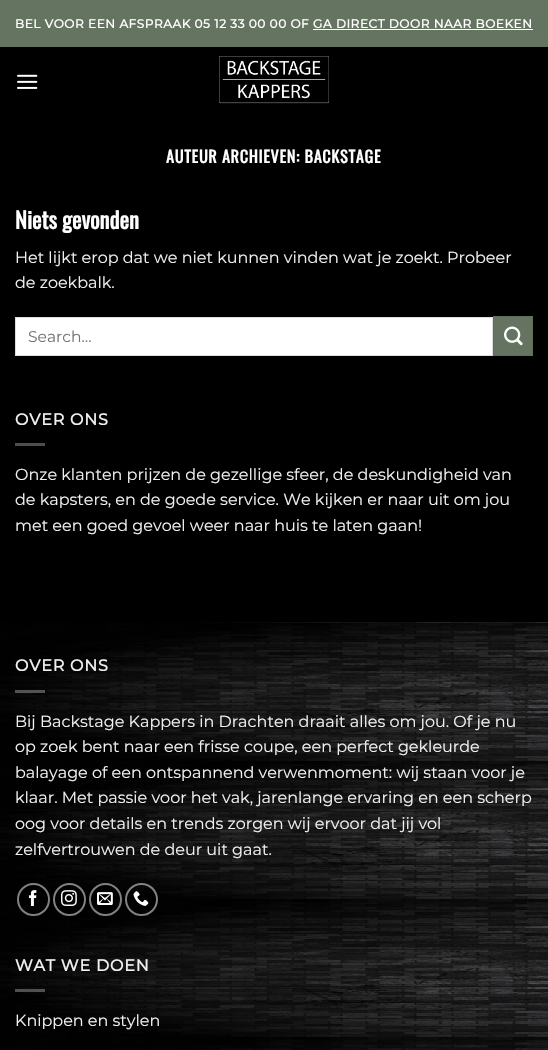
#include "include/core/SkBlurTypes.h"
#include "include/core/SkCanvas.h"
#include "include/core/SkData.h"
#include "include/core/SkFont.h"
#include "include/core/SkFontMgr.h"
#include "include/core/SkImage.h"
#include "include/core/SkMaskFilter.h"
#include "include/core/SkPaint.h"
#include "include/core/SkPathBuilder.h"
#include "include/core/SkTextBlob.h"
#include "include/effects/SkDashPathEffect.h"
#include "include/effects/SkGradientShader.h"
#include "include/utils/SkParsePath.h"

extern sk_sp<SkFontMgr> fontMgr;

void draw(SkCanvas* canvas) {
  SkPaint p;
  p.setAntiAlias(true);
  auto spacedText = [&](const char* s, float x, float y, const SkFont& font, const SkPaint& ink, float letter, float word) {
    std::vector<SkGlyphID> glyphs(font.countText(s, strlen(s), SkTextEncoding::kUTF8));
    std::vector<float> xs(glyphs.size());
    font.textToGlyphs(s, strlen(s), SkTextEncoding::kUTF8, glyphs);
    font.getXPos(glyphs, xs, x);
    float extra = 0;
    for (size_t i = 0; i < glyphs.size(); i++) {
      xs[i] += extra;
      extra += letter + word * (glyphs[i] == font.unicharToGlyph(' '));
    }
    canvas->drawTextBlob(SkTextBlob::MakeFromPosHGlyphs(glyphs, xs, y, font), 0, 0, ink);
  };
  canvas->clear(SK_ColorBLACK);
  p.setColor(SkColorSetRGB(101, 116, 97));
  canvas->drawRect(SkRect::MakeLTRB(0, 0, 548, 47), p);
  p.setColor(SK_ColorWHITE);
  canvas->drawRect(SkRect::MakeLTRB(313, 29, 533, 30), p);
  canvas->drawImageRect(SkImages::DeferredFromEncodedData(SkData::MakeFromFileName("images/1.png")), SkRect::MakeLTRB(17, 74, 38, 89), SkSamplingOptions());
  canvas->drawImageRect(SkImages::DeferredFromEncodedData(SkData::MakeFromFileName("images/2.png")), SkRect::MakeLTRB(219, 56, 329, 104), SkSamplingOptions());
  canvas->drawRect(SkRect::MakeLTRB(15.5f, 317.5f, 492.5f, 355.5f), p);
  p.setStyle(SkPaint::kStroke_Style);
  p.setStrokeWidth(1);
  p.setColor(SkColorSetRGB(221, 221, 221));
  canvas->drawRect(SkRect::MakeLTRB(15.5f, 317.5f, 492.5f, 355.5f), p);
  p.setStyle(SkPaint::kFill_Style);
  p.setColor(SkColorSetRGB(101, 116, 97));
  canvas->drawRect(SkRect::MakeLTRB(493.5f, 316.5f, 532.5f, 355.5f), p);
  p.setStyle(SkPaint::kStroke_Style);
  p.setColor(SkColorSetRGB(96, 110, 92));
  canvas->drawRect(SkRect::MakeLTRB(493.5f, 316.5f, 532.5f, 355.5f), p);
  canvas->drawImageRect(SkImages::DeferredFromEncodedData(SkData::MakeFromFileName("images/3.png")), SkRect::MakeLTRB(504, 326, 523, 346), SkSamplingOptions());
  p.setStyle(SkPaint::kFill_Style);
  p.setColor(SkColorSetRGB(77, 77, 77));
  canvas->drawRect(SkRect::MakeLTRB(15, 443, 45, 446), p);
  canvas->drawImageRect(SkImages::DeferredFromEncodedData(SkData::MakeFromFileName("images/4.png")), SkRect::MakeLTRB(0, 622, 548, 1050), SkSamplingOptions());
  p.setColor(SkColorSetARGB(77, 255, 255, 255));
  canvas->drawRect(SkRect::MakeLTRB(15, 690, 45, 693), p);
  p.setStyle(SkPaint::kStroke_Style);
  p.setStrokeWidth(2);
  p.setColor(SkColorSetARGB(128, 255, 255, 255));
  canvas->drawCircle(33.5f, 899.5f, 15.5f, p);
  canvas->drawImageRect(SkImages::DeferredFromEncodedData(SkData::MakeFromFileName("images/5.png")), SkRect::MakeLTRB(28, 890, 37, 906), SkSamplingOptions());
  canvas->drawCircle(69.5f, 899.5f, 15.5f, p);
  canvas->drawImageRect(SkImages::DeferredFromEncodedData(SkData::MakeFromFileName("images/6.png")), SkRect::MakeLTRB(61, 890, 77, 906), SkSamplingOptions());
  canvas->drawCircle(105.5f, 899.5f, 15.5f, p);
  canvas->drawImageRect(SkImages::DeferredFromEncodedData(SkData::MakeFromFileName("images/7.png")), SkRect::MakeLTRB(97, 892, 113, 905), SkSamplingOptions());
  canvas->drawCircle(141.5f, 899.5f, 15.5f, p);
  canvas->drawImageRect(SkImages::DeferredFromEncodedData(SkData::MakeFromFileName("images/8.png")), SkRect::MakeLTRB(133, 891, 149, 906), SkSamplingOptions());
  p.setStyle(SkPaint::kFill_Style);
  p.setColor(SkColorSetARGB(77, 255, 255, 255));
  canvas->drawRect(SkRect::MakeLTRB(15, 989, 45, 992), p);
  SkFont font1(fontMgr->matchFamilyStyle("Montserrat", SkFontStyle::Bold()), 12);
  font1.setSubpixel(true);
  p.setColor(SK_ColorWHITE);
  spacedText("BEL VOOR EEN AFSPRAAK 05 12 33 00 00 OF GA DIRECT DOOR NAAR BOEKEN", 15, 28, font1, p, 0.6f, 0);
  SkFont font2(fontMgr->matchFamilyStyle("Oswald", SkFontStyle::Bold()), 16);
  font2.setSubpixel(true);
  spacedText("AUTEUR ARCHIEVEN: BACKSTAGE", 166, 163, font2, p, 0.8f, 0);
  SkFont font3(fontMgr->matchFamilyStyle("Oswald", SkFontStyle::Bold()), 22.5f);
  font3.setSubpixel(true);
  canvas->drawString("Niets gevonden", 15, 229, font3, p);
  SkFont font4(fontMgr->matchFamilyStyle("Montserrat", SkFontStyle(100, SkFontStyle::kNormal_Width, SkFontStyle::kUpright_Slant)), 16);
  font4.setSubpixel(true);
  p.setColor(SkColorSetRGB(241, 241, 241));
  canvas->drawString("Het lijkt erop dat we niet kunnen vinden wat je zoekt. Probeer", 15, 263, font4, p);
  canvas->drawString("de zoekbalk.", 15, 288, font4, p);
  SkFont font5(fontMgr->matchFamilyStyle("Montserrat", SkFontStyle(100, SkFontStyle::kNormal_Width, SkFontStyle::kUpright_Slant)), 15.5f);
  font5.setSubpixel(true);
  p.setColor(SkColorSetRGB(117, 117, 117));
  canvas->drawString("Search…", 28, 342, font5, p);
  SkFont font6(fontMgr->matchFamilyStyle("Montserrat", SkFontStyle::Bold()), 16);
  font6.setSubpixel(true);
  p.setColor(SkColorSetRGB(241, 241, 241));
  spacedText("OVER ONS", 15, 425, font6, p, 0.8f, 0);
  canvas->drawString("Onze klanten prijzen de gezellige sfeer, de deskundigheid van", 15, 480, font4, p);
  canvas->drawString("de kapsters, en de goede service. We kijken er naar uit om jou", 15, 505, font4, p);
  canvas->drawString("met een goed gevoel weer naar huis te laten gaan!", 15, 531, font4, p);
  spacedText("OVER ONS", 15, 671, font6, p, 0.8f, 0);
  canvas->drawString("Bij Backstage Kappers in Drachten draait alles om jou. Of je nu", 15, 727, font4, p);
  canvas->drawString("op zoek bent naar een frisse coupe, een perfect gekleurde", 15, 752, font4, p);
  canvas->drawString("balayage of een ontspannend verwenmoment: wij staan voor je", 15, 778, font4, p);
  canvas->drawString("klaar. Met passie voor het vak, jarenlange ervaring en een scherp", 15, 803, font4, p);
  canvas->drawString("oog voor details en trends zorgen wij ervoor dat jij vol", 15, 829, font4, p);
  canvas->drawString("zelfvertrouwen de deur uit gaat.", 15, 855, font4, p);
  spacedText("WAT WE DOEN", 15, 971, font6, p, 0.8f, 0);
  canvas->drawString("Knippen en stylen", 15, 1026, font4, p);
}
